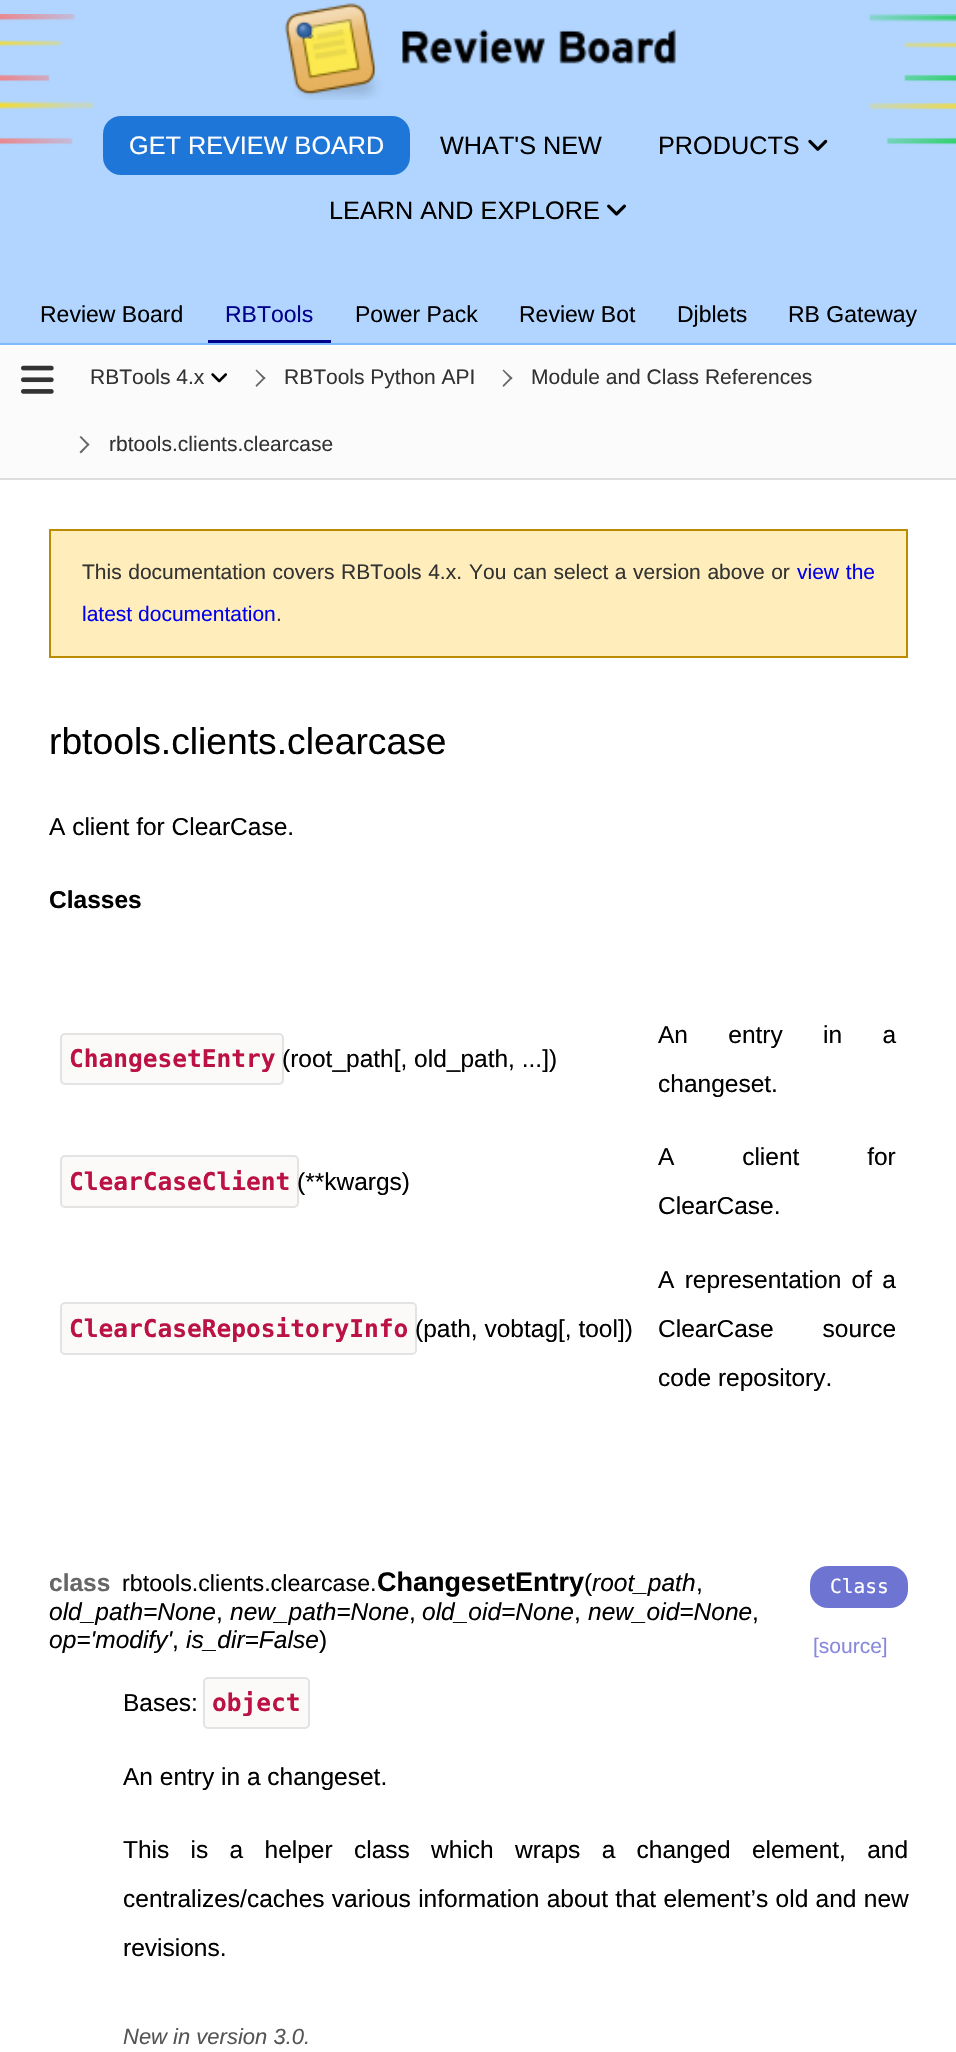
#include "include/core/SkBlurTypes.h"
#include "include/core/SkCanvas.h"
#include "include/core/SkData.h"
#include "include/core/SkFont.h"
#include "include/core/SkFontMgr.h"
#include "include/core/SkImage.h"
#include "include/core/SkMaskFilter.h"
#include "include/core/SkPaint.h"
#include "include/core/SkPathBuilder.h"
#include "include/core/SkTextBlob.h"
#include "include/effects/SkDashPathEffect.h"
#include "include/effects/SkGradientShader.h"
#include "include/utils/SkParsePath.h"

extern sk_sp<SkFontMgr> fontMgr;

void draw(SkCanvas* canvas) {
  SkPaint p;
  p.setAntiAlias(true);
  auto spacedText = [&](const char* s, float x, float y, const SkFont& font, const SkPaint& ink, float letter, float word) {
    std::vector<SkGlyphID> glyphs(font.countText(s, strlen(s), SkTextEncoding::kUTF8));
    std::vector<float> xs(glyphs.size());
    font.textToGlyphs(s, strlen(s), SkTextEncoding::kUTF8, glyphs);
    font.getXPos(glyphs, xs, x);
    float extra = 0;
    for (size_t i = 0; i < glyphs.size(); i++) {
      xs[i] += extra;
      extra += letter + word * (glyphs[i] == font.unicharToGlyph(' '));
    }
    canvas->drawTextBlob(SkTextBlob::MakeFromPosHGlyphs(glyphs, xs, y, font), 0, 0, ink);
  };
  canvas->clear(SK_ColorWHITE);
  p.setColor(SkColorSetRGB(177, 213, 255));
  canvas->drawRect(SkRect::MakeLTRB(0, 0, 956, 343), p);
  canvas->drawImageRect(SkImages::DeferredFromEncodedData(SkData::MakeFromFileName("images/1.png")), SkRect::MakeLTRB(0, 14, 94, 145), SkSamplingOptions());
  canvas->drawImageRect(SkImages::DeferredFromEncodedData(SkData::MakeFromFileName("images/2.png")), SkRect::MakeLTRB(284, 3, 676, 100), SkSamplingOptions());
  canvas->drawImageRect(SkImages::DeferredFromEncodedData(SkData::MakeFromFileName("images/3.png")), SkRect::MakeLTRB(869, 14, 956, 145), SkSamplingOptions());
  p.setColor(SkColorSetRGB(30, 118, 217));
  canvas->drawRoundRect(SkRect::MakeLTRB(103, 116, 410, 175), 18, 18, p);
  canvas->drawImageRect(SkImages::DeferredFromEncodedData(SkData::MakeFromFileName("images/4.png")), SkRect::MakeLTRB(808, 139, 828, 151), SkSamplingOptions());
  canvas->drawImageRect(SkImages::DeferredFromEncodedData(SkData::MakeFromFileName("images/5.png")), SkRect::MakeLTRB(607, 204, 626, 216), SkSamplingOptions());
  p.setColor(SkColorSetRGB(126, 186, 255));
  canvas->drawRect(SkRect::MakeLTRB(0, 343, 956, 345), p);
  p.setColor(SkColorSetRGB(0, 0, 139));
  canvas->drawRect(SkRect::MakeLTRB(208, 340, 331, 343), p);
  p.setColor(SkColorSetRGB(251, 251, 251));
  canvas->drawRect(SkRect::MakeLTRB(0, 345, 956, 478), p);
  canvas->drawImageRect(SkImages::DeferredFromEncodedData(SkData::MakeFromFileName("images/6.png")), SkRect::MakeLTRB(21, 365, 54, 394), SkSamplingOptions());
  p.setColor(SkColorSetRGB(221, 221, 221));
  canvas->drawRect(SkRect::MakeLTRB(0, 478, 956, 480), p);
  canvas->drawImageRect(SkImages::DeferredFromEncodedData(SkData::MakeFromFileName("images/7.png")), SkRect::MakeLTRB(211, 373, 227, 383), SkSamplingOptions());
  p.setColor(SkColorSetRGB(102, 102, 102));
  canvas->drawPath(SkPathBuilder().moveTo(256.5f, 369.5f).lineTo(265.5f, 378).lineTo(264, 379.5f).lineTo(255.5f, 370.5f).close().detach(), p);
  canvas->drawPath(SkPathBuilder().moveTo(264, 377).lineTo(265.5f, 378).lineTo(256.5f, 387).lineTo(255.5f, 385.5f).close().detach(), p);
  canvas->drawPath(SkPathBuilder().moveTo(503.5f, 369.5f).lineTo(512.5f, 378).lineTo(511, 379.5f).lineTo(502.5f, 370.5f).close().detach(), p);
  canvas->drawPath(SkPathBuilder().moveTo(511, 377).lineTo(512.5f, 378).lineTo(503.5f, 387).lineTo(502.5f, 385.5f).close().detach(), p);
  canvas->drawPath(SkPathBuilder().moveTo(81, 436).lineTo(89.5f, 444.5f).lineTo(88, 446).lineTo(79.5f, 437).close().detach(), p);
  canvas->drawPath(SkPathBuilder().moveTo(88, 443.5f).lineTo(89.5f, 444.5f).lineTo(81, 453.5f).lineTo(79.5f, 452).close().detach(), p);
  p.setColor(SkColorSetRGB(255, 238, 187));
  canvas->drawRect(SkRect::MakeLTRB(50, 530, 907, 657), p);
  p.setStyle(SkPaint::kStroke_Style);
  p.setStrokeWidth(2);
  p.setColor(SkColorSetRGB(187, 140, 0));
  canvas->drawRect(SkRect::MakeLTRB(50, 530, 907, 657), p);
  p.setStyle(SkPaint::kFill_Style);
  p.setColor(SkColorSetRGB(251, 250, 248));
  canvas->drawRoundRect(SkRect::MakeLTRB(61, 1034, 283, 1084), 4, 4, p);
  p.setStyle(SkPaint::kStroke_Style);
  p.setColor(SkColorSetRGB(227, 227, 227));
  canvas->drawRoundRect(SkRect::MakeLTRB(61, 1034, 283, 1084), 4, 4, p);
  p.setStyle(SkPaint::kFill_Style);
  p.setColor(SkColorSetRGB(251, 250, 248));
  canvas->drawRoundRect(SkRect::MakeLTRB(61, 1156, 298, 1207), 4, 4, p);
  p.setStyle(SkPaint::kStroke_Style);
  p.setColor(SkColorSetRGB(227, 227, 227));
  canvas->drawRoundRect(SkRect::MakeLTRB(61, 1156, 298, 1207), 4, 4, p);
  p.setStyle(SkPaint::kFill_Style);
  p.setColor(SkColorSetRGB(251, 250, 248));
  canvas->drawRoundRect(SkRect::MakeLTRB(61, 1303, 416, 1354), 4, 4, p);
  p.setStyle(SkPaint::kStroke_Style);
  p.setColor(SkColorSetRGB(227, 227, 227));
  canvas->drawRoundRect(SkRect::MakeLTRB(61, 1303, 416, 1354), 4, 4, p);
  p.setStyle(SkPaint::kFill_Style);
  p.setColor(SkColorSetRGB(110, 116, 210));
  canvas->drawRoundRect(SkRect::MakeLTRB(810, 1566, 908, 1608), 18, 18, p);
  p.setColor(SkColorSetRGB(251, 250, 248));
  canvas->drawRoundRect(SkRect::MakeLTRB(204, 1678, 309, 1728), 4, 4, p);
  p.setStyle(SkPaint::kStroke_Style);
  p.setColor(SkColorSetRGB(227, 227, 227));
  canvas->drawRoundRect(SkRect::MakeLTRB(204, 1678, 309, 1728), 4, 4, p);
  SkFont font1(fontMgr->matchFamilyStyle("Liberation Sans", SkFontStyle::Normal()), 25.25f);
  font1.setSubpixel(true);
  p.setStyle(SkPaint::kFill_Style);
  p.setColor(SK_ColorWHITE);
  canvas->drawString("GET REVIEW BOARD", 129, 154, font1, p);
  p.setColor(SK_ColorBLACK);
  canvas->drawString("WHAT'S NEW", 440, 154, font1, p);
  canvas->drawString("PRODUCTS", 658, 154, font1, p);
  canvas->drawString("LEARN AND EXPLORE", 329, 219, font1, p);
  SkFont font2(fontMgr->matchFamilyStyle("Liberation Sans", SkFontStyle::Normal()), 23);
  font2.setSubpixel(true);
  canvas->drawString("Review Board", 40, 322, font2, p);
  p.setColor(SkColorSetRGB(0, 0, 139));
  canvas->drawString("RBTools", 225, 322, font2, p);
  p.setColor(SK_ColorBLACK);
  canvas->drawString("Power Pack", 355, 322, font2, p);
  canvas->drawString("Review Bot", 519, 322, font2, p);
  canvas->drawString("Djblets", 677, 322, font2, p);
  canvas->drawString("RB Gateway", 788, 322, font2, p);
  SkFont font3(fontMgr->matchFamilyStyle("Liberation Sans", SkFontStyle::Normal()), 21);
  font3.setSubpixel(true);
  p.setColor(SkColorSetRGB(51, 51, 51));
  canvas->drawString("RBTools 4.x", 90, 384, font3, p);
  canvas->drawString("RBTools Python API", 284, 384, font3, p);
  canvas->drawString("Module and Class References", 531, 384, font3, p);
  canvas->drawString("rbtools.clients.clearcase", 109, 451, font3, p);
  spacedText("This documentation covers RBTools 4.x.", 82, 579, font3, p, 0, 0.75f);
  spacedText("You can select a version above or", 469, 579, font3, p, 0, 0.75f);
  p.setColor(SkColorSetRGB(0, 0, 238));
  spacedText("view the", 797, 579, font3, p, 0, 1);
  canvas->drawString("latest documentation", 82, 621, font3, p);
  p.setColor(SkColorSetRGB(51, 51, 51));
  canvas->drawString(".", 276, 621, font3, p);
  SkFont font4(fontMgr->matchFamilyStyle("Liberation Sans", SkFontStyle::Normal()), 37.25f);
  font4.setSubpixel(true);
  p.setColor(SK_ColorBLACK);
  canvas->drawString("rbtools.clients.clearcase", 49, 754, font4, p);
  SkFont font5(fontMgr->matchFamilyStyle("Liberation Sans", SkFontStyle::Normal()), 24.5f);
  font5.setSubpixel(true);
  canvas->drawString("A client for ClearCase.", 49, 835, font5, p);
  SkFont font6(fontMgr->matchFamilyStyle("Liberation Sans", SkFontStyle::Bold()), 24.5f);
  font6.setSubpixel(true);
  canvas->drawString("Classes", 49, 908, font6, p);
  SkFont font7(fontMgr->matchFamilyStyle("DejaVu Sans Mono", SkFontStyle::Bold()), 24.5f);
  font7.setSubpixel(true);
  p.setColor(SkColorSetRGB(187, 17, 68));
  canvas->drawString("ChangesetEntry", 69, 1067, font7, p);
  p.setColor(SK_ColorBLACK);
  canvas->drawString("(root_path[, old_path, ...])", 282, 1067, font5, p);
  spacedText("An entry in a", 658, 1043, font5, p, 0, 33.5f);
  canvas->drawString("changeset.", 658, 1092, font5, p);
  p.setColor(SkColorSetRGB(187, 17, 68));
  canvas->drawString("ClearCaseClient", 69, 1190, font7, p);
  p.setColor(SK_ColorBLACK);
  canvas->drawString("(**kwargs)", 297, 1190, font5, p);
  spacedText("A client for", 658, 1165, font5, p, 0, 61);
  canvas->drawString("ClearCase.", 658, 1214, font5, p);
  p.setColor(SkColorSetRGB(187, 17, 68));
  canvas->drawString("ClearCaseRepositoryInfo", 69, 1337, font7, p);
  p.setColor(SK_ColorBLACK);
  canvas->drawString("(path, vobtag[, tool])", 415, 1337, font5, p);
  spacedText("A representation of a", 658, 1288, font5, p, 0, 3.5f);
  spacedText("ClearCase source", 658, 1337, font5, p, 0, 42);
  canvas->drawString("code repository.", 658, 1386, font5, p);
  p.setColor(SkColorSetRGB(102, 102, 102));
  canvas->drawString("class", 49, 1591, font6, p);
  SkFont font8(fontMgr->matchFamilyStyle("Liberation Sans", SkFontStyle::Normal()), 23.25f);
  font8.setSubpixel(true);
  p.setColor(SK_ColorBLACK);
  canvas->drawString("rbtools.clients.clearcase.", 122, 1591, font8, p);
  SkFont font9(fontMgr->matchFamilyStyle("Liberation Sans", SkFontStyle::Bold()), 27);
  font9.setSubpixel(true);
  canvas->drawString("ChangesetEntry", 377, 1591, font9, p);
  canvas->drawString("(", 584, 1591, font5, p);
  SkFont font10(fontMgr->matchFamilyStyle("Liberation Sans", SkFontStyle::Italic()), 24.5f);
  font10.setSubpixel(true);
  canvas->drawString("root_path", 592, 1591, font10, p);
  canvas->drawString(",", 696, 1591, font5, p);
  canvas->drawString("old_path=None", 49, 1620, font10, p);
  canvas->drawString(",", 216, 1620, font5, p);
  canvas->drawString("new_path=None", 230, 1620, font10, p);
  canvas->drawString(",", 409, 1620, font5, p);
  canvas->drawString("old_oid=None", 422, 1620, font10, p);
  canvas->drawString(",", 574, 1620, font5, p);
  canvas->drawString("new_oid=None", 588, 1620, font10, p);
  canvas->drawString(",", 752, 1620, font5, p);
  canvas->drawString("op='modify'", 49, 1648, font10, p);
  canvas->drawString(",", 172, 1648, font5, p);
  canvas->drawString("is_dir=False", 186, 1648, font10, p);
  canvas->drawString(")", 319, 1648, font5, p);
  p.setColor(SkColorSetRGB(136, 136, 221));
  canvas->drawString("[source]", 813, 1653, font3, p);
  SkFont font11(fontMgr->matchFamilyStyle("DejaVu Sans Mono", SkFontStyle::Normal()), 19.5f);
  font11.setSubpixel(true);
  p.setColor(SK_ColorWHITE);
  canvas->drawString("Class", 830, 1593, font11, p);
  p.setColor(SK_ColorBLACK);
  canvas->drawString("Bases:", 123, 1711, font5, p);
  p.setColor(SkColorSetRGB(187, 17, 68));
  canvas->drawString("object", 212, 1711, font7, p);
  p.setColor(SK_ColorBLACK);
  canvas->drawString("An entry in a changeset.", 123, 1785, font5, p);
  spacedText("This is a helper class which wraps a changed element, and", 123, 1858, font5, p, 0, 14.5f);
  spacedText("centralizes/caches various information about that element’s old and new", 123, 1907, font5, p, 0, 0.5f);
  canvas->drawString("revisions.", 123, 1956, font5, p);
  SkFont font12(fontMgr->matchFamilyStyle("Liberation Sans", SkFontStyle::Italic()), 22);
  font12.setSubpixel(true);
  p.setColor(SkColorSetRGB(85, 85, 85));
  canvas->drawString("New in version 3.0.", 123, 2044, font12, p);
}
